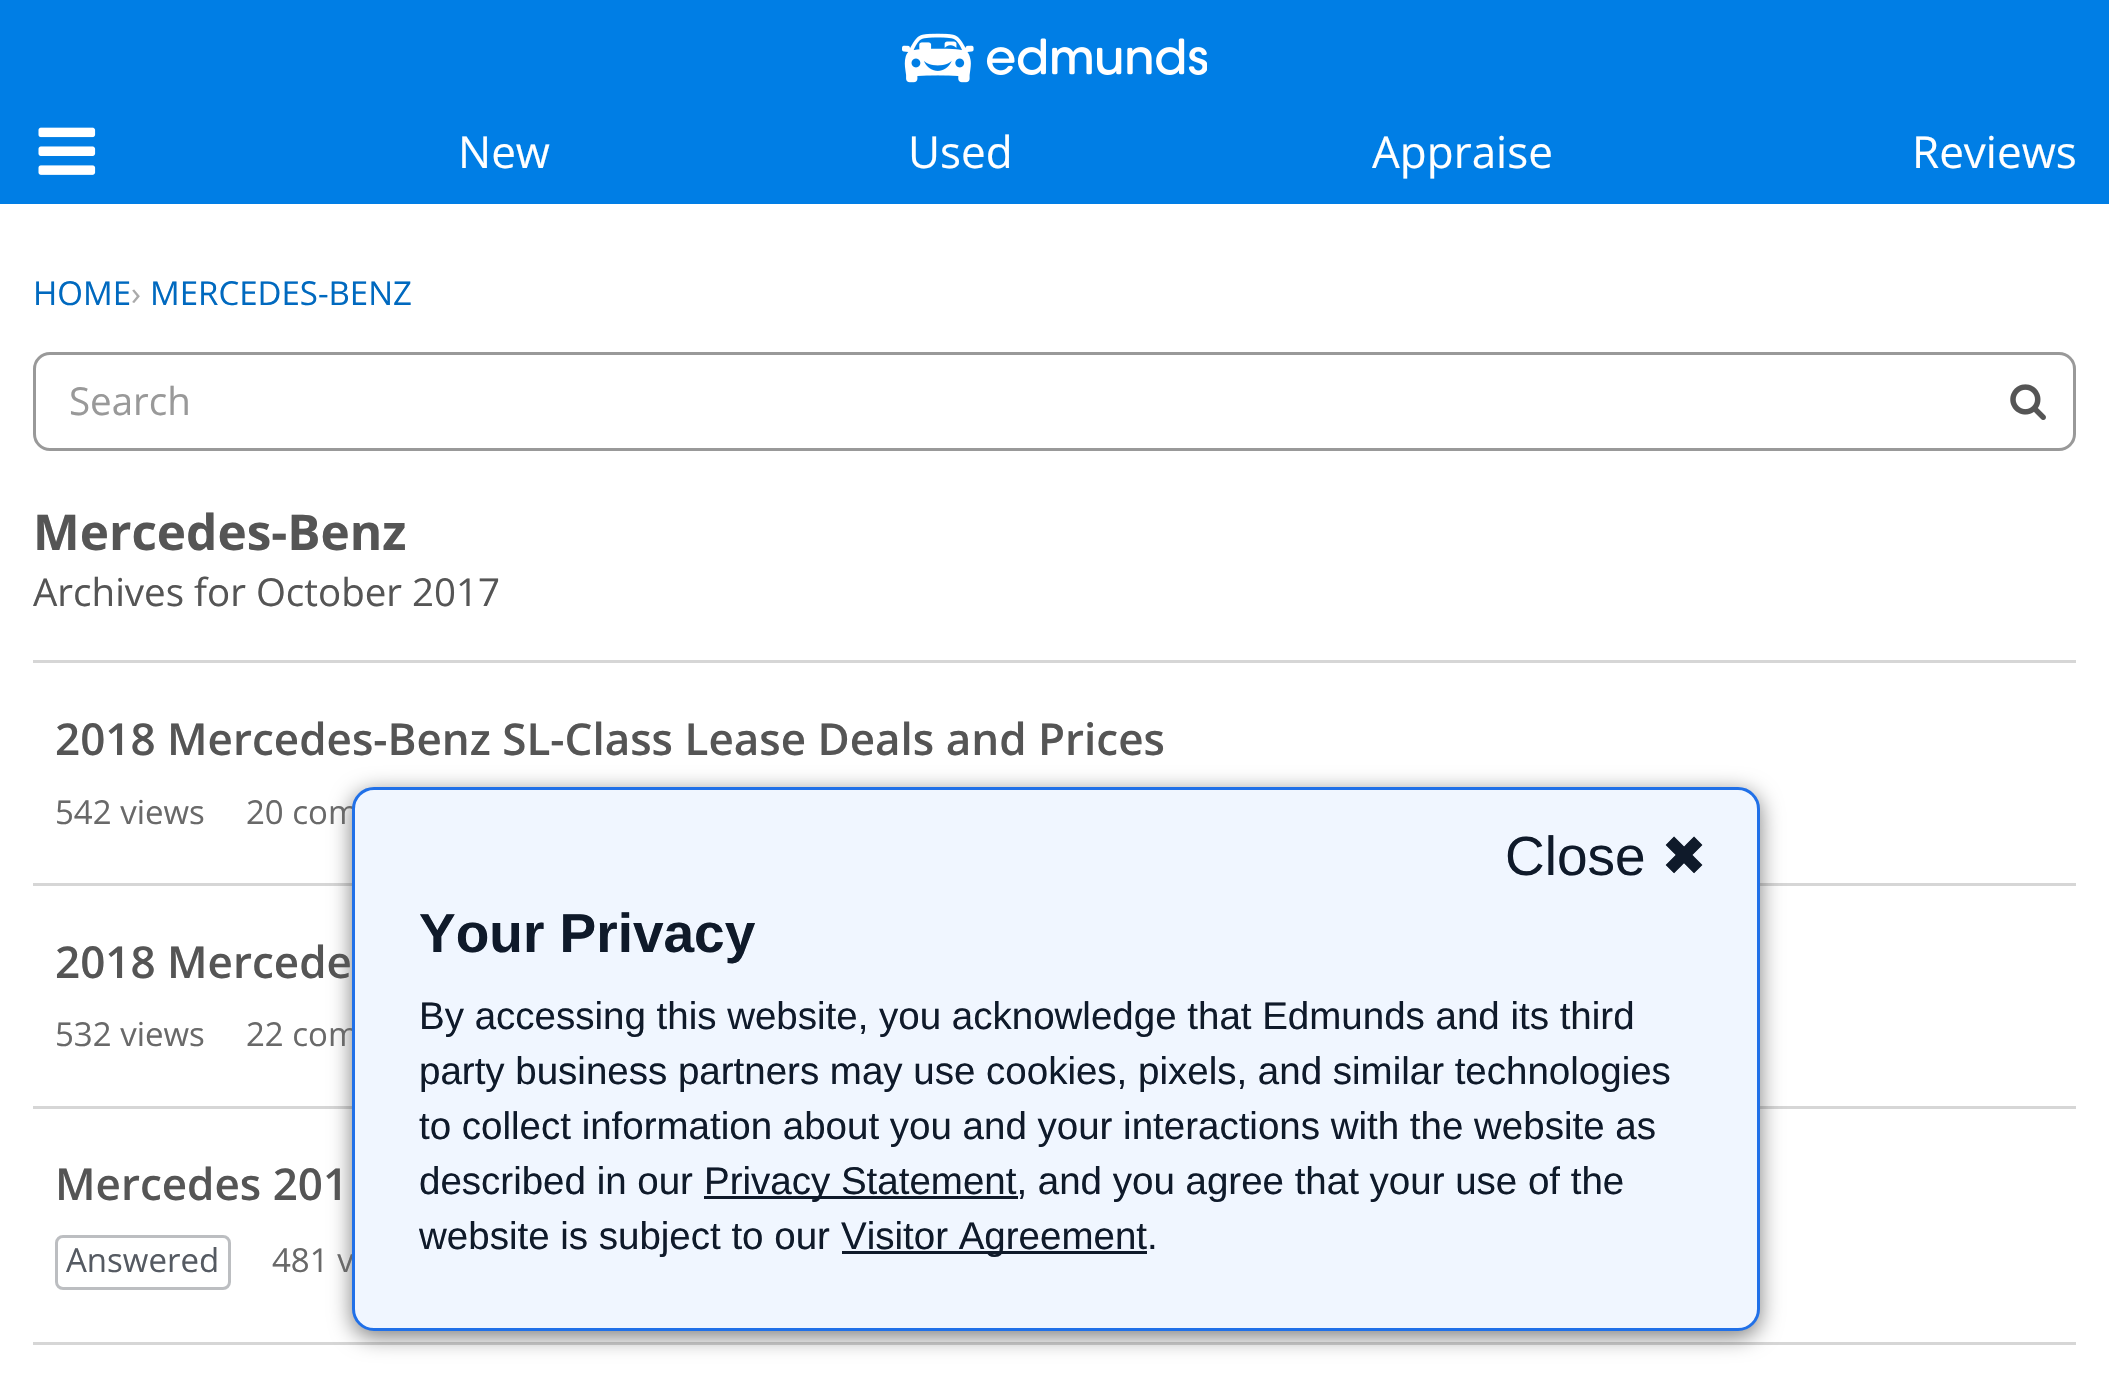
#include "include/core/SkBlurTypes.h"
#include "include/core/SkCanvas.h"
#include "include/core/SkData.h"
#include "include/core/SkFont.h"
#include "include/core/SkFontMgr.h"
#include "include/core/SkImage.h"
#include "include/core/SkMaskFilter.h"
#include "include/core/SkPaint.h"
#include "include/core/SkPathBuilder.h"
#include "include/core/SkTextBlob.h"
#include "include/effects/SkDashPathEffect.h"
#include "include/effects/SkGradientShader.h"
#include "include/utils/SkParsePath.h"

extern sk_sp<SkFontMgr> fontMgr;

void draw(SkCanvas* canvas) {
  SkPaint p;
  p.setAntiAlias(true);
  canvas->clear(SK_ColorWHITE);
  p.setColor(SkColorSetRGB(0, 126, 229));
  canvas->drawRect(SkRect::MakeLTRB(0, 0, 2109, 204), p);
  canvas->drawImageRect(SkImages::DeferredFromEncodedData(SkData::MakeFromFileName("images/1.png")), SkRect::MakeLTRB(902, 33, 1207, 83), SkSamplingOptions());
  canvas->drawImageRect(SkImages::DeferredFromEncodedData(SkData::MakeFromFileName("images/2.png")), SkRect::MakeLTRB(38, 127, 96, 175), SkSamplingOptions());
  p.setStyle(SkPaint::kStroke_Style);
  p.setStrokeWidth(3);
  p.setColor(SkColorSetRGB(153, 153, 153));
  canvas->drawRoundRect(SkRect::MakeLTRB(34.5f, 353.5f, 2074.5f, 449.5f), 15.5f, 15.5f, p);
  canvas->drawImageRect(SkImages::DeferredFromEncodedData(SkData::MakeFromFileName("images/3.png")), SkRect::MakeLTRB(2010, 384, 2046, 420), SkSamplingOptions());
  p.setStyle(SkPaint::kFill_Style);
  p.setColor(SkColorSetRGB(214, 214, 214));
  canvas->drawRect(SkRect::MakeLTRB(33, 660, 2076, 663), p);
  canvas->drawRect(SkRect::MakeLTRB(33, 883, 2076, 886), p);
  canvas->drawRect(SkRect::MakeLTRB(33, 1106, 2076, 1109), p);
  p.setStyle(SkPaint::kStroke_Style);
  p.setColor(SkColorSetRGB(188, 190, 193));
  canvas->drawRoundRect(SkRect::MakeLTRB(56.5f, 1236.5f, 229.5f, 1288.5f), 6.5f, 6.5f, p);
  p.setStyle(SkPaint::kFill_Style);
  p.setColor(SkColorSetRGB(214, 214, 214));
  canvas->drawRect(SkRect::MakeLTRB(33, 1342, 2076, 1345), p);
  p.setColor(SkColorSetARGB(128, 0, 0, 0));
  p.setMaskFilter(SkMaskFilter::MakeBlur(kNormal_SkBlurStyle, 11));
  canvas->drawRoundRect(SkRect::MakeLTRB(352, 792, 1760, 1337), 22, 22, p);
  p.setMaskFilter(nullptr);
  SkFont font1(fontMgr->matchFamilyStyle("Open Sans", SkFontStyle::Normal()), 44);
  font1.setSubpixel(true);
  p.setColor(SK_ColorWHITE);
  canvas->drawString("New", 458, 168, font1, p);
  canvas->drawString("Used", 908, 168, font1, p);
  canvas->drawString("Appraise", 1372, 168, font1, p);
  canvas->drawString("Reviews", 1912, 168, font1, p);
  SkFont font2(fontMgr->matchFamilyStyle("Open Sans", SkFontStyle::Normal()), 33);
  font2.setSubpixel(true);
  p.setColor(SkColorSetRGB(0, 105, 191));
  canvas->drawString("HOME", 33, 305, font2, p);
  p.setColor(SkColorSetRGB(170, 170, 170));
  canvas->drawString("›", 131, 305, font2, p);
  p.setColor(SkColorSetRGB(0, 105, 191));
  canvas->drawString("MERCEDES-BENZ", 150, 305, font2, p);
  SkFont font3(fontMgr->matchFamilyStyle("Open Sans", SkFontStyle::Normal()), 38.5f);
  font3.setSubpixel(true);
  p.setColor(SkColorSetRGB(153, 153, 153));
  canvas->drawString("Search", 69, 415, font3, p);
  SkFont font4(fontMgr->matchFamilyStyle("Open Sans", SkFontStyle::Bold()), 49.5f);
  font4.setSubpixel(true);
  p.setColor(SkColorSetRGB(85, 85, 85));
  canvas->drawString("Mercedes-Benz", 33, 550, font4, p);
  canvas->drawString("Archives for October 2017", 33, 606, font3, p);
  SkFont font5(fontMgr->matchFamilyStyle("Open Sans", SkFontStyle(600, SkFontStyle::kNormal_Width, SkFontStyle::kUpright_Slant)), 44);
  font5.setSubpixel(true);
  canvas->drawString("2018 Mercedes-Benz SL-Class Lease Deals and Prices", 55, 755, font5, p);
  p.setColor(SkColorSetRGB(105, 105, 105));
  canvas->drawString("542 views", 55, 824, font2, p);
  canvas->drawString("20 com", 246, 824, font2, p);
  p.setColor(SkColorSetRGB(85, 85, 85));
  canvas->drawString("2018 Mercede", 55, 978, font5, p);
  p.setColor(SkColorSetRGB(105, 105, 105));
  canvas->drawString("532 views", 55, 1046, font2, p);
  canvas->drawString("22 com", 246, 1046, font2, p);
  p.setColor(SkColorSetRGB(85, 85, 85));
  canvas->drawString("Mercedes 201", 55, 1200, font5, p);
  p.setColor(SkColorSetRGB(85, 90, 98));
  canvas->drawString("Answered", 66, 1272, font2, p);
  p.setColor(SkColorSetRGB(105, 105, 105));
  canvas->drawString("481 v", 272, 1272, font2, p);
  p.setColor(SkColorSetRGB(240, 246, 255));
  canvas->drawRoundRect(SkRect::MakeLTRB(353.5f, 788.5f, 1758.5f, 1329.5f), 20.5f, 20.5f, p);
  p.setStyle(SkPaint::kStroke_Style);
  p.setColor(SkColorSetRGB(32, 112, 232));
  canvas->drawRoundRect(SkRect::MakeLTRB(353.5f, 788.5f, 1758.5f, 1329.5f), 20.5f, 20.5f, p);
  SkFont font6(fontMgr->matchFamilyStyle("Liberation Sans", SkFontStyle::Normal()), 55);
  font6.setSubpixel(true);
  p.setStyle(SkPaint::kFill_Style);
  p.setColor(SkColorSetRGB(15, 26, 42));
  canvas->drawString("Close", 1505, 875, font6, p);
  SkFont font7(fontMgr->matchFamilyStyle("DejaVu Sans", SkFontStyle::Normal()), 55);
  font7.setSubpixel(true);
  canvas->drawString("✖", 1661, 875, font7, p);
  SkFont font8(fontMgr->matchFamilyStyle("Liberation Sans", SkFontStyle::Bold()), 55);
  font8.setSubpixel(true);
  canvas->drawString("Your Privacy", 419, 952, font8, p);
  SkFont font9(fontMgr->matchFamilyStyle("Liberation Sans", SkFontStyle::Normal()), 38.5f);
  font9.setSubpixel(true);
  canvas->drawString("By accessing this website, you acknowledge that Edmunds and its third", 419, 1029, font9, p);
  canvas->drawString("party business partners may use cookies, pixels, and similar technologies", 419, 1084, font9, p);
  canvas->drawString("to collect information about you and your interactions with the website as", 419, 1139, font9, p);
  canvas->drawString("described in our", 419, 1194, font9, p);
  canvas->drawRect(SkRect::MakeLTRB(704, 1196, 1018, 1199), p);
  canvas->drawString("Privacy Statement, and you agree that your use of the", 704, 1194, font9, p);
  canvas->drawString("website is subject to our", 419, 1249, font9, p);
  canvas->drawRect(SkRect::MakeLTRB(842, 1251, 1147, 1254), p);
  canvas->drawString("Visitor Agreement.", 841, 1249, font9, p);
}
